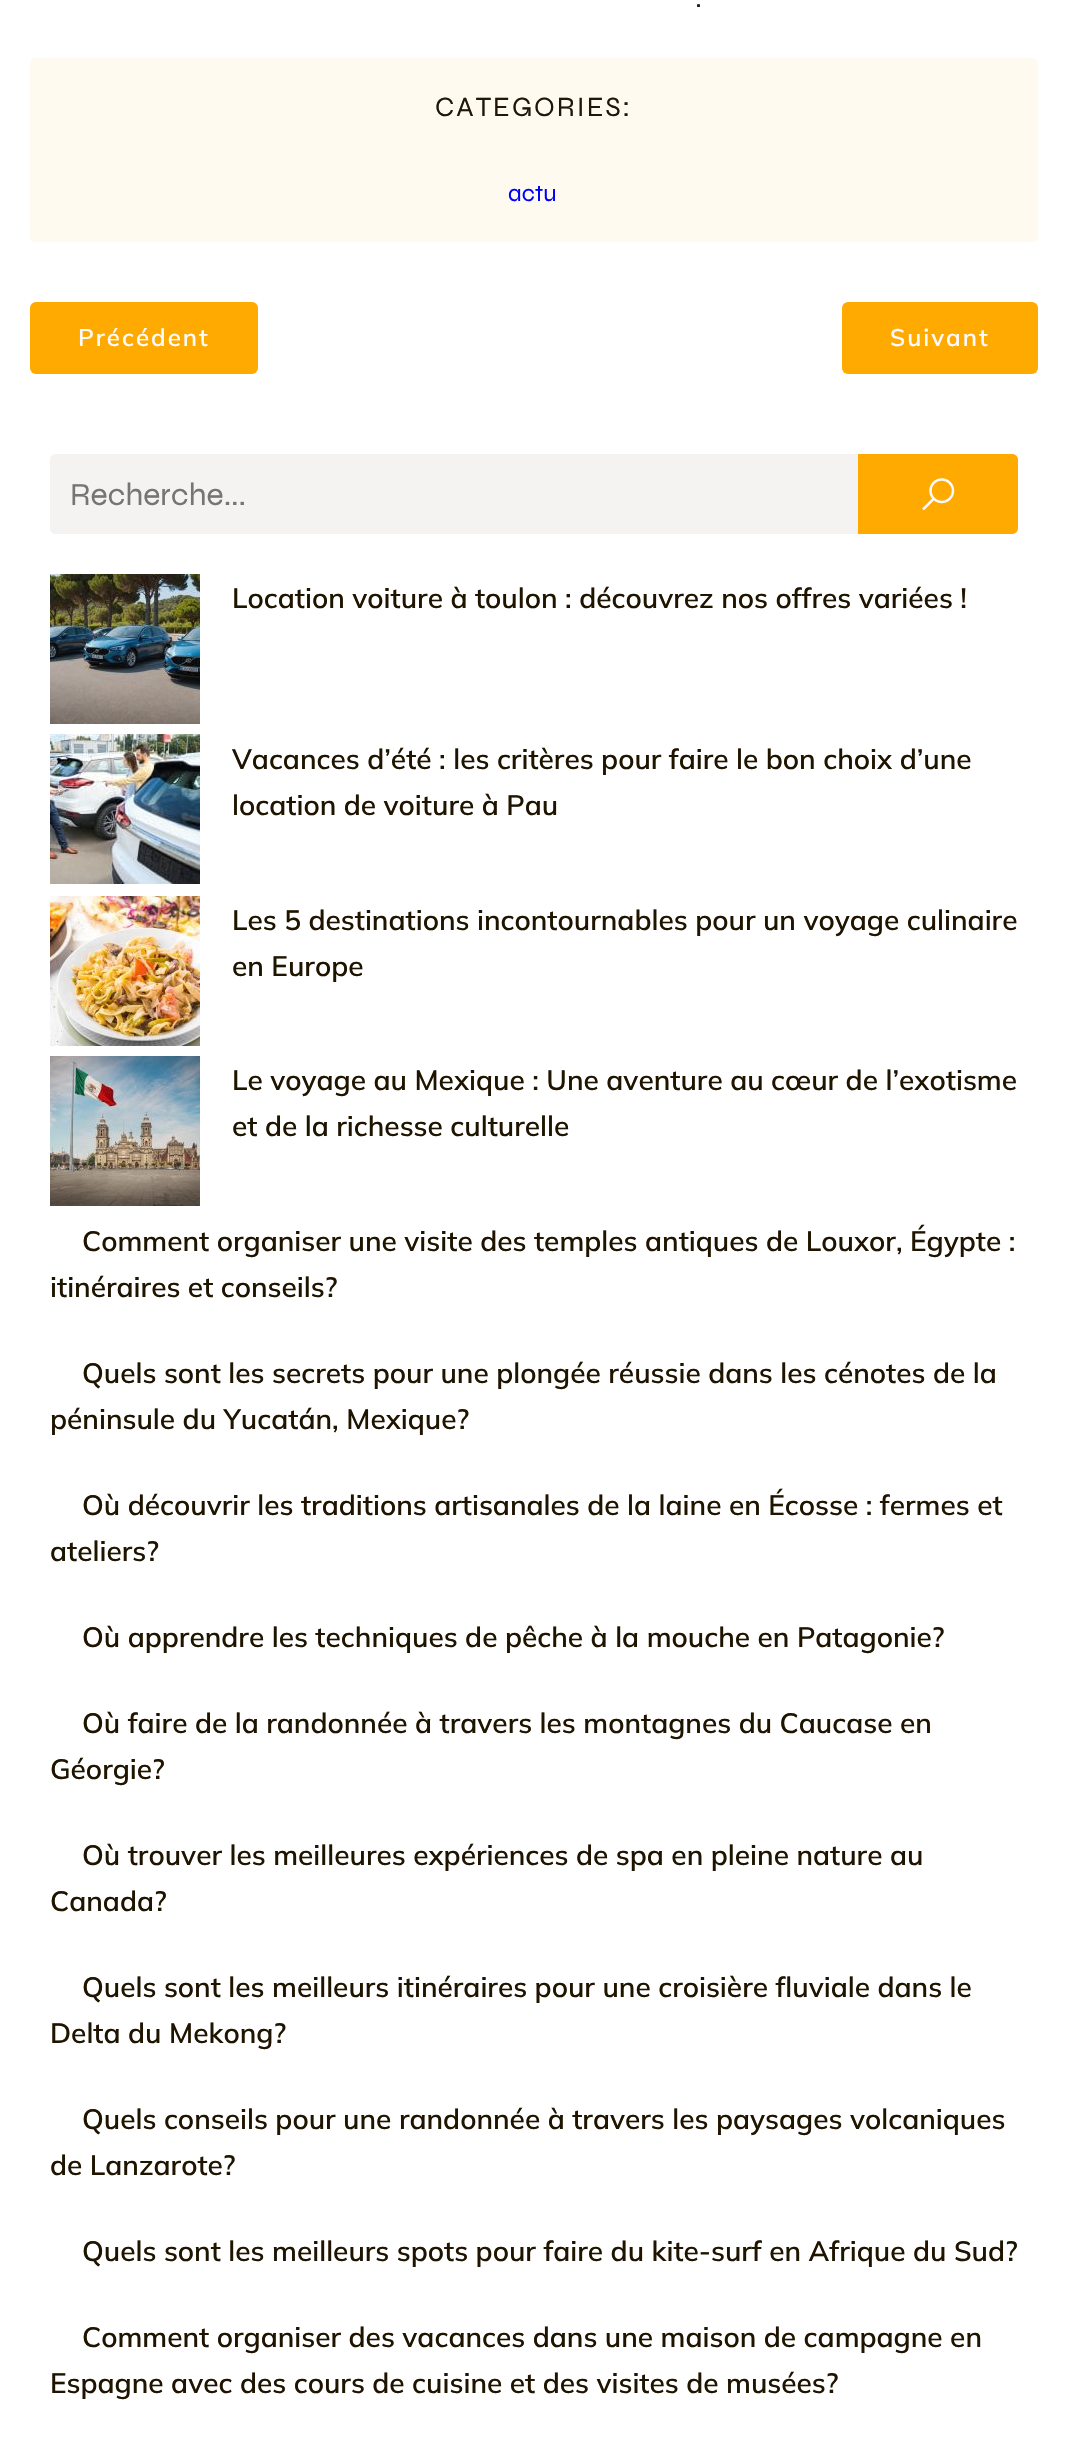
#include "include/core/SkBlurTypes.h"
#include "include/core/SkCanvas.h"
#include "include/core/SkData.h"
#include "include/core/SkFont.h"
#include "include/core/SkFontMgr.h"
#include "include/core/SkImage.h"
#include "include/core/SkMaskFilter.h"
#include "include/core/SkPaint.h"
#include "include/core/SkPathBuilder.h"
#include "include/core/SkTextBlob.h"
#include "include/effects/SkDashPathEffect.h"
#include "include/effects/SkGradientShader.h"
#include "include/utils/SkParsePath.h"

extern sk_sp<SkFontMgr> fontMgr;

void draw(SkCanvas* canvas) {
  SkPaint p;
  p.setAntiAlias(true);
  auto spacedText = [&](const char* s, float x, float y, const SkFont& font, const SkPaint& ink, float letter, float word) {
    std::vector<SkGlyphID> glyphs(font.countText(s, strlen(s), SkTextEncoding::kUTF8));
    std::vector<float> xs(glyphs.size());
    font.textToGlyphs(s, strlen(s), SkTextEncoding::kUTF8, glyphs);
    font.getXPos(glyphs, xs, x);
    float extra = 0;
    for (size_t i = 0; i < glyphs.size(); i++) {
      xs[i] += extra;
      extra += letter + word * (glyphs[i] == font.unicharToGlyph(' '));
    }
    canvas->drawTextBlob(SkTextBlob::MakeFromPosHGlyphs(glyphs, xs, y, font), 0, 0, ink);
  };
  canvas->clear(SK_ColorWHITE);
  p.setColor(SkColorSetRGB(255, 250, 239));
  canvas->drawRoundRect(SkRect::MakeLTRB(30, 58, 1038, 242), 6, 6, p);
  p.setColor(SkColorSetRGB(255, 170, 0));
  canvas->drawRoundRect(SkRect::MakeLTRB(30, 302, 258, 374), 6, 6, p);
  canvas->drawRoundRect(SkRect::MakeLTRB(842, 302, 1038, 374), 6, 6, p);
  p.setColor(SkColorSetRGB(244, 243, 242));
  canvas->drawPath(SkPathBuilder().moveTo(56, 454).lineTo(858, 454).lineTo(858, 534).lineTo(56, 534).cubicTo(52.5f, 534, 50, 531.5f, 50, 528).lineTo(50, 460).cubicTo(50, 456.5f, 52.5f, 454, 56, 454).close().detach(), p);
  p.setColor(SkColorSetRGB(255, 170, 0));
  canvas->drawPath(SkPathBuilder().moveTo(858, 454).lineTo(1012, 454).cubicTo(1015.5f, 454, 1018, 456.5f, 1018, 460).lineTo(1018, 528).cubicTo(1018, 531.5f, 1015.5f, 534, 1012, 534).lineTo(858, 534).close().detach(), p);
  canvas->drawImageRect(SkImages::DeferredFromEncodedData(SkData::MakeFromFileName("images/1.png")), SkRect::MakeLTRB(922, 478, 955, 511), SkSamplingOptions());
  canvas->drawImageRect(SkImages::DeferredFromEncodedData(SkData::MakeFromFileName("images/2.png")), SkRect::MakeLTRB(50, 574, 200, 724), SkSamplingOptions());
  canvas->drawImageRect(SkImages::DeferredFromEncodedData(SkData::MakeFromFileName("images/3.png")), SkRect::MakeLTRB(50, 734, 200, 884), SkSamplingOptions());
  canvas->drawImageRect(SkImages::DeferredFromEncodedData(SkData::MakeFromFileName("images/4.png")), SkRect::MakeLTRB(50, 896, 200, 1046), SkSamplingOptions());
  canvas->drawImageRect(SkImages::DeferredFromEncodedData(SkData::MakeFromFileName("images/5.png")), SkRect::MakeLTRB(50, 1056, 200, 1206), SkSamplingOptions());
  SkFont font1(fontMgr->matchFamilyStyle("Mulish", SkFontStyle(300, SkFontStyle::kNormal_Width, SkFontStyle::kUpright_Slant)), 32);
  font1.setSubpixel(true);
  p.setColor(SkColorSetRGB(30, 23, 10));
  canvas->drawString(".", 695, 7, font1, p);
  SkFont font2(fontMgr->matchFamilyStyle("Syne", SkFontStyle::Normal()), 28);
  font2.setSubpixel(true);
  spacedText("CATEGORIES:", 435, 116, font2, p, 2, 0);
  SkFont font3(fontMgr->matchFamilyStyle("Syne", SkFontStyle::Normal()), 24);
  font3.setSubpixel(true);
  p.setColor(SkColorSetRGB(0, 0, 255));
  canvas->drawString("actu", 508, 201, font3, p);
  SkFont font4(fontMgr->matchFamilyStyle("Mulish", SkFontStyle(600, SkFontStyle::kNormal_Width, SkFontStyle::kUpright_Slant)), 24);
  font4.setSubpixel(true);
  p.setColor(SkColorSetRGB(253, 250, 255));
  spacedText("Précédent", 78, 346, font4, p, 2, 0);
  spacedText("Suivant", 890, 346, font4, p, 2, 0);
  SkFont font5(fontMgr->matchFamilyStyle("Syne", SkFontStyle::Normal()), 32);
  font5.setSubpixel(true);
  p.setColor(SkColorSetRGB(117, 117, 117));
  canvas->drawString("Recherche...", 70, 505, font5, p);
  SkFont font6(fontMgr->matchFamilyStyle("Mulish", SkFontStyle(600, SkFontStyle::kNormal_Width, SkFontStyle::kUpright_Slant)), 28);
  font6.setSubpixel(true);
  p.setColor(SkColorSetRGB(31, 20, 0));
  canvas->drawString("Location voiture à toulon : découvrez nos offres variées !", 232, 608, font6, p);
  canvas->drawString("Vacances d’été : les critères pour faire le bon choix d’une", 232, 769, font6, p);
  canvas->drawString("location de voiture à Pau", 232, 815, font6, p);
  canvas->drawString("Les 5 destinations incontournables pour un voyage culinaire", 232, 930, font6, p);
  canvas->drawString("en Europe", 232, 976, font6, p);
  canvas->drawString("Le voyage au Mexique : Une aventure au cœur de l’exotisme", 232, 1090, font6, p);
  canvas->drawString("et de la richesse culturelle", 232, 1136, font6, p);
  canvas->drawString("Comment organiser une visite des temples antiques de Louxor, Égypte :", 82, 1251, font6, p);
  canvas->drawString("itinéraires et conseils?", 50, 1297, font6, p);
  canvas->drawString("Quels sont les secrets pour une plongée réussie dans les cénotes de la", 82, 1383, font6, p);
  canvas->drawString("péninsule du Yucatán, Mexique?", 50, 1429, font6, p);
  canvas->drawString("Où découvrir les traditions artisanales de la laine en Écosse : fermes et", 82, 1515, font6, p);
  canvas->drawString("ateliers?", 50, 1561, font6, p);
  canvas->drawString("Où apprendre les techniques de pêche à la mouche en Patagonie?", 82, 1647, font6, p);
  canvas->drawString("Où faire de la randonnée à travers les montagnes du Caucase en", 82, 1733, font6, p);
  canvas->drawString("Géorgie?", 50, 1779, font6, p);
  canvas->drawString("Où trouver les meilleures expériences de spa en pleine nature au", 82, 1865, font6, p);
  canvas->drawString("Canada?", 50, 1911, font6, p);
  canvas->drawString("Quels sont les meilleurs itinéraires pour une croisière fluviale dans le", 82, 1997, font6, p);
  canvas->drawString("Delta du Mekong?", 50, 2043, font6, p);
  canvas->drawString("Quels conseils pour une randonnée à travers les paysages volcaniques", 82, 2129, font6, p);
  canvas->drawString("de Lanzarote?", 50, 2175, font6, p);
  canvas->drawString("Quels sont les meilleurs spots pour faire du kite-surf en Afrique du Sud?", 82, 2261, font6, p);
  canvas->drawString("Comment organiser des vacances dans une maison de campagne en", 82, 2347, font6, p);
  canvas->drawString("Espagne avec des cours de cuisine et des visites de musées?", 50, 2393, font6, p);
}
